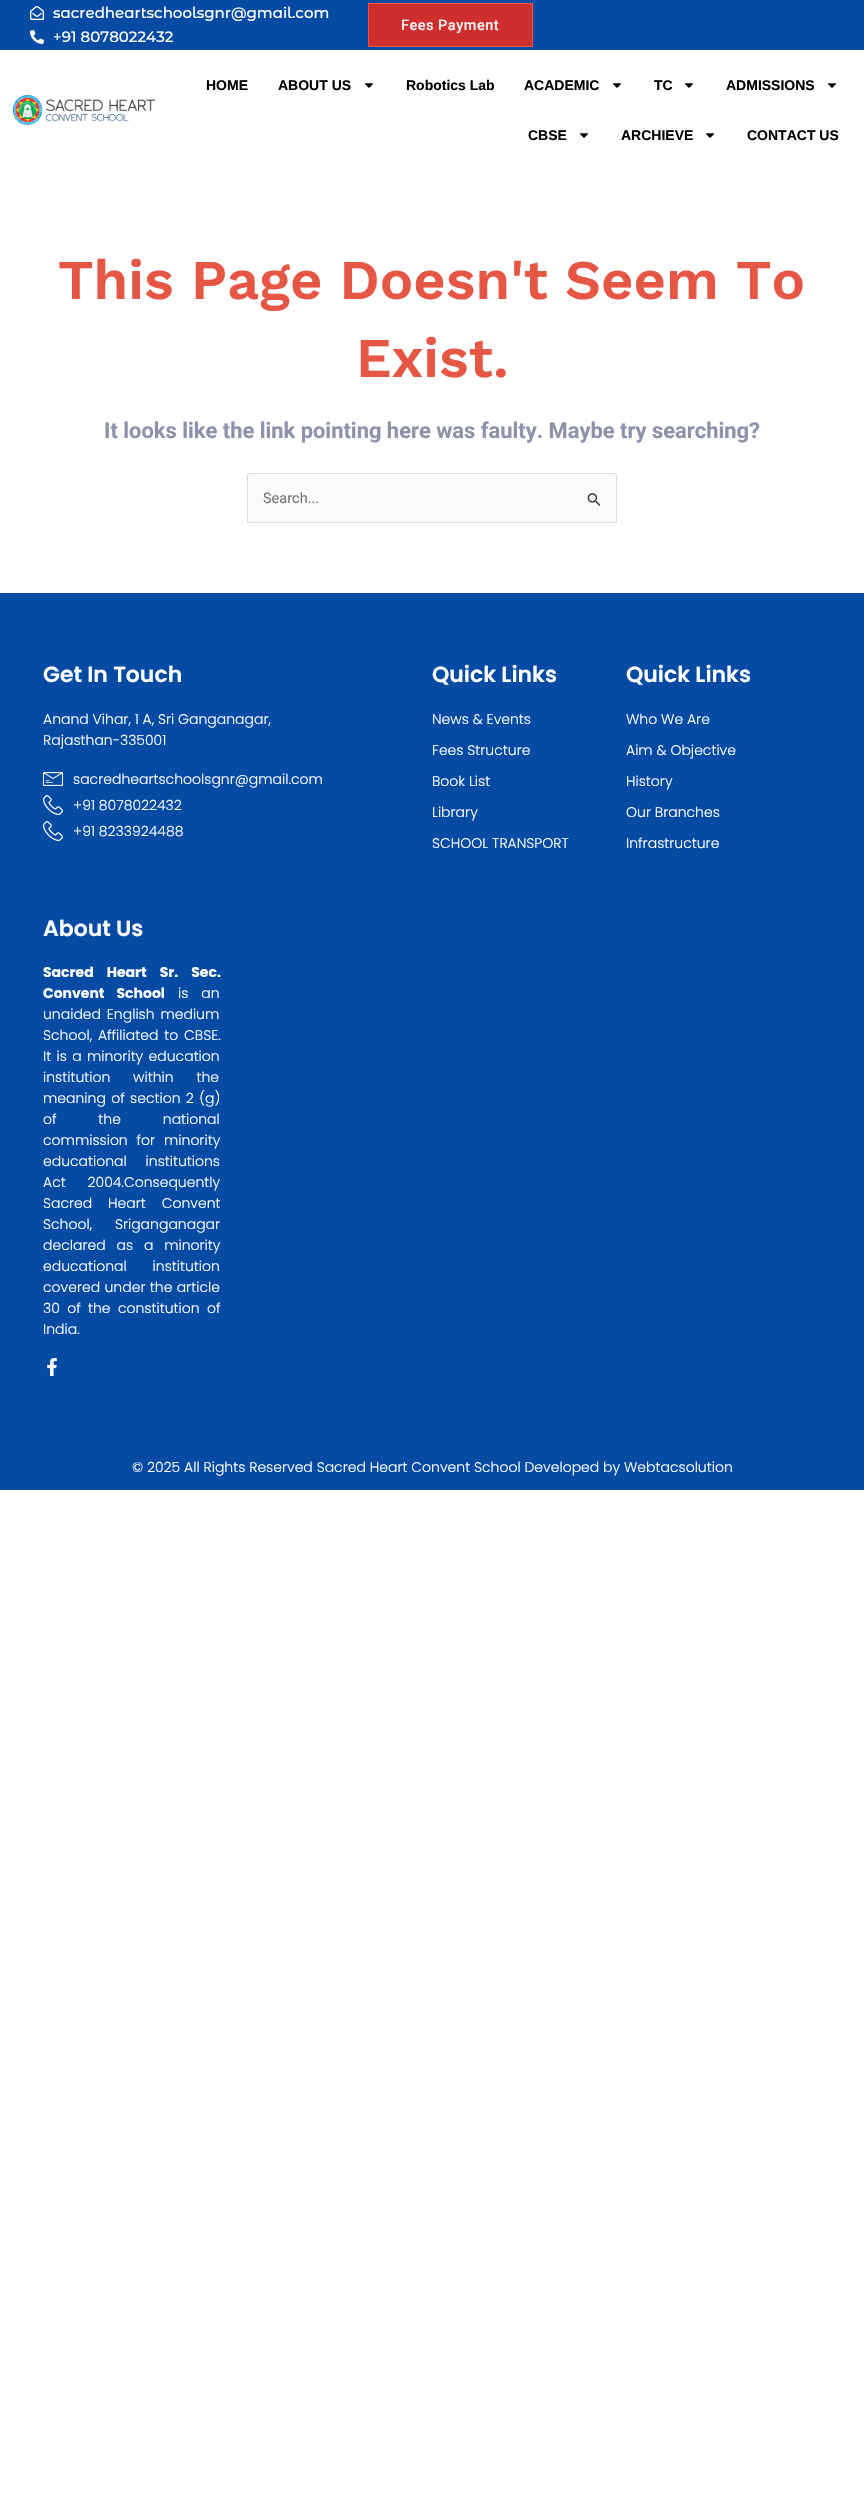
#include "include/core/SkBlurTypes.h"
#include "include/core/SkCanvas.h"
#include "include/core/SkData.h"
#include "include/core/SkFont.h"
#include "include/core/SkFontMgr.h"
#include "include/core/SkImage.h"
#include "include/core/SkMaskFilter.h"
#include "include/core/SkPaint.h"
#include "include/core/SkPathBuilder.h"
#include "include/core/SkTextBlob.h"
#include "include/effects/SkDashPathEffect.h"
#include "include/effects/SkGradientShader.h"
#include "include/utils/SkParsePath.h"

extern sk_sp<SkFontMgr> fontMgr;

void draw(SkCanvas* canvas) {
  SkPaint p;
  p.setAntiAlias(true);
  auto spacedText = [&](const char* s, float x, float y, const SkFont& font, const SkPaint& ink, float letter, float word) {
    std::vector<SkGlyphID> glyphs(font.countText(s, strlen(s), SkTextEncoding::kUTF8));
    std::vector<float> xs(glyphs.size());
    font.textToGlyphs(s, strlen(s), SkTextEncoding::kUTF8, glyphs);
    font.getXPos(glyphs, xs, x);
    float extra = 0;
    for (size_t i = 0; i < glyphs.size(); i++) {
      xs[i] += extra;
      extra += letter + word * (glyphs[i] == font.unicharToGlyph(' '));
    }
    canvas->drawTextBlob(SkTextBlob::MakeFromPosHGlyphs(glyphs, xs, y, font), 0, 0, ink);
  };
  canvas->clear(SK_ColorWHITE);
  p.setColor(SkColorSetRGB(5, 74, 163));
  canvas->drawRect(SkRect::MakeLTRB(0, 0, 864, 50), p);
  canvas->drawImageRect(SkImages::DeferredFromEncodedData(SkData::MakeFromFileName("images/1.png")), SkRect::MakeLTRB(30, 6, 44, 20), SkSamplingOptions());
  canvas->drawImageRect(SkImages::DeferredFromEncodedData(SkData::MakeFromFileName("images/2.png")), SkRect::MakeLTRB(30, 30, 44, 44), SkSamplingOptions());
  p.setColor(SkColorSetRGB(207, 46, 46));
  canvas->drawRect(SkRect::MakeLTRB(368.5f, 3.5f, 532.5f, 46.5f), p);
  p.setStyle(SkPaint::kStroke_Style);
  p.setStrokeWidth(1);
  p.setColor(SkColorSetRGB(230, 86, 68));
  canvas->drawRect(SkRect::MakeLTRB(368.5f, 3.5f, 532.5f, 46.5f), p);
  canvas->drawImageRect(SkImages::DeferredFromEncodedData(SkData::MakeFromFileName("images/3.png")), SkRect::MakeLTRB(12, 95, 156, 125), SkSamplingOptions());
  canvas->drawImageRect(SkImages::DeferredFromEncodedData(SkData::MakeFromFileName("images/4.png")), SkRect::MakeLTRB(365, 83, 373, 88), SkSamplingOptions());
  canvas->drawImageRect(SkImages::DeferredFromEncodedData(SkData::MakeFromFileName("images/4.png")), SkRect::MakeLTRB(613, 83, 621, 88), SkSamplingOptions());
  canvas->drawImageRect(SkImages::DeferredFromEncodedData(SkData::MakeFromFileName("images/4.png")), SkRect::MakeLTRB(685, 83, 693, 88), SkSamplingOptions());
  canvas->drawImageRect(SkImages::DeferredFromEncodedData(SkData::MakeFromFileName("images/4.png")), SkRect::MakeLTRB(828, 83, 836, 88), SkSamplingOptions());
  canvas->drawImageRect(SkImages::DeferredFromEncodedData(SkData::MakeFromFileName("images/4.png")), SkRect::MakeLTRB(580, 133, 588, 138), SkSamplingOptions());
  canvas->drawImageRect(SkImages::DeferredFromEncodedData(SkData::MakeFromFileName("images/4.png")), SkRect::MakeLTRB(706, 133, 714, 138), SkSamplingOptions());
  p.setStyle(SkPaint::kFill_Style);
  p.setColor(SkColorSetRGB(250, 250, 250));
  canvas->drawRoundRect(SkRect::MakeLTRB(247.5f, 473.5f, 616.5f, 522.5f), 1.5f, 1.5f, p);
  p.setStyle(SkPaint::kStroke_Style);
  p.setColor(SkColorSetRGB(221, 221, 221));
  canvas->drawRoundRect(SkRect::MakeLTRB(247.5f, 473.5f, 616.5f, 522.5f), 1.5f, 1.5f, p);
  canvas->drawImageRect(SkImages::DeferredFromEncodedData(SkData::MakeFromFileName("images/5.png")), SkRect::MakeLTRB(587, 493, 600, 506), SkSamplingOptions());
  p.setStyle(SkPaint::kFill_Style);
  p.setColor(SkColorSetRGB(5, 74, 163));
  canvas->drawRect(SkRect::MakeLTRB(0, 593, 864, 1490), p);
  canvas->drawImageRect(SkImages::DeferredFromEncodedData(SkData::MakeFromFileName("images/6.png")), SkRect::MakeLTRB(43, 772, 63, 786), SkSamplingOptions());
  canvas->drawImageRect(SkImages::DeferredFromEncodedData(SkData::MakeFromFileName("images/7.png")), SkRect::MakeLTRB(43, 795, 63, 815), SkSamplingOptions());
  canvas->drawImageRect(SkImages::DeferredFromEncodedData(SkData::MakeFromFileName("images/7.png")), SkRect::MakeLTRB(43, 821, 63, 841), SkSamplingOptions());
  canvas->drawImageRect(SkImages::DeferredFromEncodedData(SkData::MakeFromFileName("images/8.png")), SkRect::MakeLTRB(47, 1358, 57, 1376), SkSamplingOptions());
  SkFont font1(fontMgr->matchFamilyStyle("Montserrat Alternates", SkFontStyle(500, SkFontStyle::kNormal_Width, SkFontStyle::kUpright_Slant)), 15);
  font1.setSubpixel(true);
  p.setColor(SK_ColorWHITE);
  canvas->drawString("sacredheartschoolsgnr@gmail.com", 53, 18, font1, p);
  canvas->drawString("+91 8078022432", 53, 42, font1, p);
  SkFont font2(fontMgr->matchFamilyStyle("Roboto", SkFontStyle(500, SkFontStyle::kNormal_Width, SkFontStyle::kUpright_Slant)), 14.5f);
  font2.setSubpixel(true);
  p.setColor(SkColorSetRGB(243, 243, 243));
  spacedText("Fees Payment", 401, 30, font2, p, 0.5f, 0);
  SkFont font3(fontMgr->matchFamilyStyle("Liberation Sans", SkFontStyle::Bold()), 14);
  font3.setSubpixel(true);
  p.setColor(SK_ColorBLACK);
  canvas->drawString("HOME", 206, 90, font3, p);
  canvas->drawString("ABOUT US", 278, 90, font3, p);
  canvas->drawString("Robotics Lab", 406, 90, font3, p);
  canvas->drawString("ACADEMIC", 524, 90, font3, p);
  canvas->drawString("TC", 654, 90, font3, p);
  canvas->drawString("ADMISSIONS", 726, 90, font3, p);
  canvas->drawString("CBSE", 528, 140, font3, p);
  canvas->drawString("ARCHIEVE", 621, 140, font3, p);
  canvas->drawString("CONTACT US", 747, 140, font3, p);
  SkFont font4(fontMgr->matchFamilyStyle("Work Sans", SkFontStyle(600, SkFontStyle::kNormal_Width, SkFontStyle::kUpright_Slant)), 56);
  font4.setSubpixel(true);
  p.setColor(SkColorSetRGB(230, 86, 68));
  canvas->drawString("This Page Doesn't Seem To", 58, 299, font4, p);
  canvas->drawString("Exist.", 356, 377, font4, p);
  SkFont font5(fontMgr->matchFamilyStyle("Roboto", SkFontStyle::Bold()), 21.9f);
  font5.setSubpixel(true);
  p.setColor(SkColorSetRGB(142, 145, 170));
  canvas->drawString("It looks like the link pointing here was faulty. Maybe try searching?", 104, 438, font5, p);
  SkFont font6(fontMgr->matchFamilyStyle("Roboto", SkFontStyle::Normal()), 14.5f);
  font6.setSubpixel(true);
  p.setColor(SkColorSetRGB(117, 117, 117));
  canvas->drawString("Search...", 263, 503, font6, p);
  SkFont font7(fontMgr->matchFamilyStyle("Poppins", SkFontStyle(600, SkFontStyle::kNormal_Width, SkFontStyle::kUpright_Slant)), 22);
  font7.setSubpixel(true);
  p.setColor(SK_ColorWHITE);
  canvas->drawString("Get In Touch", 43, 682, font7, p);
  SkFont font8(fontMgr->matchFamilyStyle("Poppins", SkFontStyle(300, SkFontStyle::kNormal_Width, SkFontStyle::kUpright_Slant)), 14);
  font8.setSubpixel(true);
  canvas->drawString("Anand Vihar, 1 A, Sri Ganganagar,", 43, 724, font8, p);
  canvas->drawString("Rajasthan-335001", 43, 745, font8, p);
  canvas->drawString("sacredheartschoolsgnr@gmail.com", 73, 784, font8, p);
  canvas->drawString("+91 8078022432", 73, 810, font8, p);
  canvas->drawString("+91 8233924488", 73, 836, font8, p);
  canvas->drawString("Quick Links", 432, 682, font7, p);
  canvas->drawString("News & Events", 432, 724, font8, p);
  canvas->drawString("Fees Structure", 432, 755, font8, p);
  canvas->drawString("Book List", 432, 786, font8, p);
  canvas->drawString("Library", 432, 817, font8, p);
  canvas->drawString("SCHOOL TRANSPORT", 432, 848, font8, p);
  canvas->drawString("Quick Links", 626, 682, font7, p);
  canvas->drawString("Who We Are", 626, 724, font8, p);
  canvas->drawString("Aim & Objective", 626, 755, font8, p);
  canvas->drawString("History", 626, 786, font8, p);
  canvas->drawString("Our Branches", 626, 817, font8, p);
  canvas->drawString("Infrastructure", 626, 848, font8, p);
  canvas->drawString("About Us", 43, 936, font7, p);
  SkFont font9(fontMgr->matchFamilyStyle("Poppins", SkFontStyle::Bold()), 14);
  font9.setSubpixel(true);
  spacedText("Sacred Heart Sr. Sec.", 43, 977, font9, p, 0, 10);
  spacedText("Convent School", 43, 998, font9, p, 0, 9);
  spacedText("is an", 178, 998, font8, p, 0, 9);
  spacedText("unaided English medium", 43, 1019, font8, p, 0, 2);
  spacedText("School, Affiliated to CBSE.", 43, 1040, font8, p, 0, 2);
  spacedText("It is a minority education", 43, 1061, font8, p, 0, 1.5f);
  spacedText("institution within the", 43, 1082, font8, p, 0, 19);
  spacedText("meaning of section 2 (g)", 43, 1103, font8, p, 0, 1.5f);
  spacedText("of the national", 43, 1124, font8, p, 0, 38);
  spacedText("commission for minority", 43, 1145, font8, p, 0, 5);
  spacedText("educational institutions", 43, 1166, font8, p, 0, 15);
  spacedText("Act 2004.Consequently", 43, 1187, font8, p, 0, 18);
  spacedText("Sacred Heart Convent", 43, 1208, font8, p, 0, 12);
  spacedText("School, Sriganganagar", 43, 1229, font8, p, 0, 19);
  spacedText("declared as a minority", 43, 1250, font8, p, 0, 7);
  spacedText("educational institution", 43, 1271, font8, p, 0, 22);
  spacedText("covered under the article", 43, 1292, font8, p, 0, 0.5f);
  spacedText("30 of the constitution of", 43, 1313, font8, p, 0, 3.5f);
  canvas->drawString("India.", 43, 1334, font8, p);
  canvas->drawString("© 2025 All Rights Reserved Sacred Heart Convent School Developed by Webtacsolution", 132, 1472, font8, p);
}
